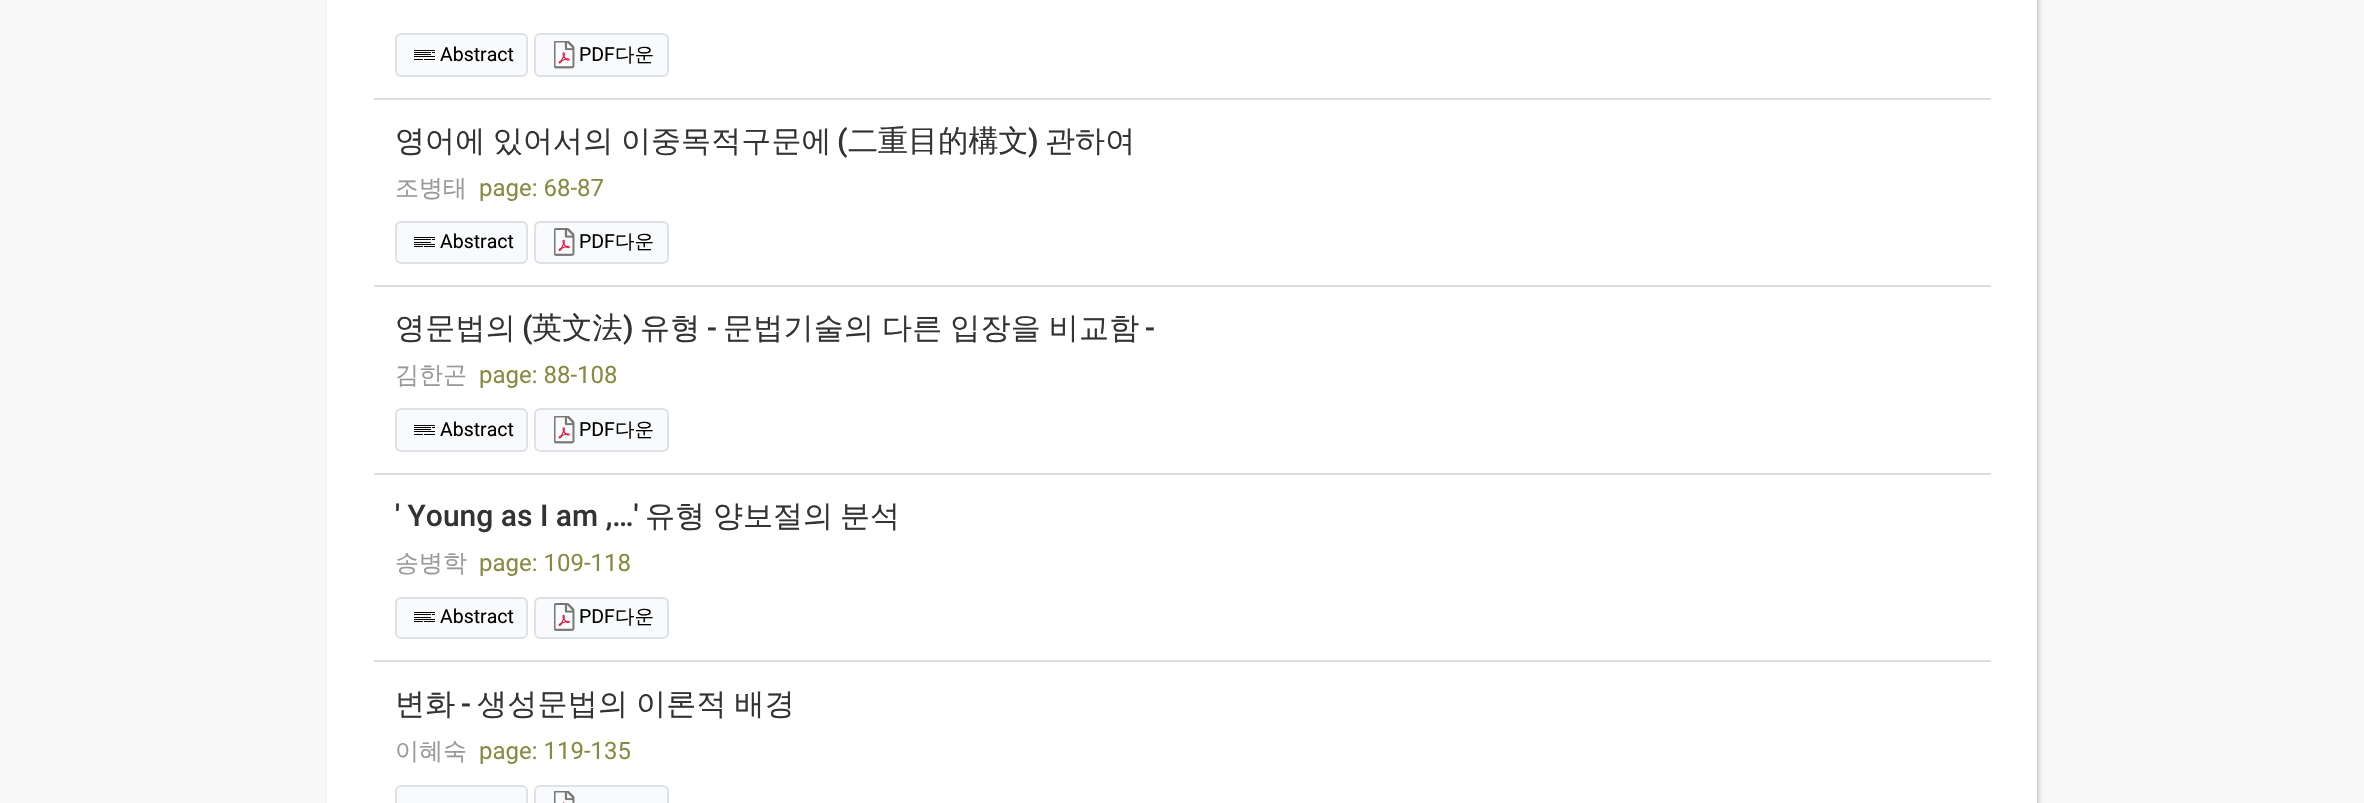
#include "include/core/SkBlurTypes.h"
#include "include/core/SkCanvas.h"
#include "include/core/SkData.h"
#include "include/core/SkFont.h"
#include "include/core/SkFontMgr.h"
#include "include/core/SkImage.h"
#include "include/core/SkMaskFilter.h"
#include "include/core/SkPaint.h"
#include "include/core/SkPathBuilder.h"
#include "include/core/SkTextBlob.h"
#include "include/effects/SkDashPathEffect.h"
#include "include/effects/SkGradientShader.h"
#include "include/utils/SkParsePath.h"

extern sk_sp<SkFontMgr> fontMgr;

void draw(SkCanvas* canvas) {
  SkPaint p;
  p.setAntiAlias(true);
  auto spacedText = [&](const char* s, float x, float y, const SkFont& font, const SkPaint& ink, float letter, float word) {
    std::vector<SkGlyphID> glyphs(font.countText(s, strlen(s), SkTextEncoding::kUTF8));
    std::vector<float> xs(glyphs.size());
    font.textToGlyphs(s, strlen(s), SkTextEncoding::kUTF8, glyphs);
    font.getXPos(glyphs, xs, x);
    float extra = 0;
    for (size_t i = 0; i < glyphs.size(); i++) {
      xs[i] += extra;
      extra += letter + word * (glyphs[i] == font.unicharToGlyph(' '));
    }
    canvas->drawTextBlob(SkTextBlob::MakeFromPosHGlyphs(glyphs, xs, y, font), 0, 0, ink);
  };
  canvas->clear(SkColorSetRGB(248, 248, 248));
  p.setColor(SkColorSetARGB(51, 0, 0, 0));
  p.setMaskFilter(SkMaskFilter::MakeBlur(kNormal_SkBlurStyle, 2));
  canvas->drawRect(SkRect::MakeLTRB(329, -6, 2039, 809), p);
  p.setMaskFilter(nullptr);
  p.setColor(SK_ColorWHITE);
  canvas->drawRect(SkRect::MakeLTRB(327, 0, 2037, 803), p);
  p.setColor(SkColorSetRGB(221, 221, 221));
  canvas->drawRect(SkRect::MakeLTRB(374, 98, 1991, 100), p);
  p.setColor(SkColorSetRGB(248, 250, 252));
  canvas->drawRoundRect(SkRect::MakeLTRB(395, 33, 528, 77), 6, 6, p);
  canvas->drawImageRect(SkImages::DeferredFromEncodedData(SkData::MakeFromFileName("images/1.png")), SkRect::MakeLTRB(414, 50, 435, 60), SkSamplingOptions());
  p.setStyle(SkPaint::kStroke_Style);
  p.setStrokeWidth(2);
  p.setColor(SkColorSetRGB(222, 226, 230));
  canvas->drawRoundRect(SkRect::MakeLTRB(396, 34, 527, 76), 5, 5, p);
  p.setStyle(SkPaint::kFill_Style);
  p.setColor(SkColorSetRGB(248, 250, 252));
  canvas->drawRoundRect(SkRect::MakeLTRB(534, 33, 669, 77), 6, 6, p);
  canvas->drawImageRect(SkImages::DeferredFromEncodedData(SkData::MakeFromFileName("images/2.png")), SkRect::MakeLTRB(554, 41, 575, 69), SkSamplingOptions());
  p.setStyle(SkPaint::kStroke_Style);
  p.setColor(SkColorSetRGB(222, 226, 230));
  canvas->drawRoundRect(SkRect::MakeLTRB(535, 34, 668, 76), 5, 5, p);
  p.setStyle(SkPaint::kFill_Style);
  p.setColor(SkColorSetRGB(221, 221, 221));
  canvas->drawRect(SkRect::MakeLTRB(374, 285, 1991, 287), p);
  p.setColor(SkColorSetRGB(248, 250, 252));
  canvas->drawRoundRect(SkRect::MakeLTRB(395, 221, 528, 264), 6, 6, p);
  canvas->drawImageRect(SkImages::DeferredFromEncodedData(SkData::MakeFromFileName("images/3.png")), SkRect::MakeLTRB(414, 237, 435, 247), SkSamplingOptions());
  p.setStyle(SkPaint::kStroke_Style);
  p.setColor(SkColorSetRGB(222, 226, 230));
  canvas->drawRoundRect(SkRect::MakeLTRB(396, 222, 527, 263), 5, 5, p);
  p.setStyle(SkPaint::kFill_Style);
  p.setColor(SkColorSetRGB(248, 250, 252));
  canvas->drawRoundRect(SkRect::MakeLTRB(534, 221, 669, 264), 6, 6, p);
  canvas->drawImageRect(SkImages::DeferredFromEncodedData(SkData::MakeFromFileName("images/4.png")), SkRect::MakeLTRB(554, 228, 575, 256), SkSamplingOptions());
  p.setStyle(SkPaint::kStroke_Style);
  p.setColor(SkColorSetRGB(222, 226, 230));
  canvas->drawRoundRect(SkRect::MakeLTRB(535, 222, 668, 263), 5, 5, p);
  p.setStyle(SkPaint::kFill_Style);
  p.setColor(SkColorSetRGB(221, 221, 221));
  canvas->drawRect(SkRect::MakeLTRB(374, 473, 1991, 475), p);
  p.setColor(SkColorSetRGB(248, 250, 252));
  canvas->drawRoundRect(SkRect::MakeLTRB(395, 408, 528, 452), 6, 6, p);
  canvas->drawImageRect(SkImages::DeferredFromEncodedData(SkData::MakeFromFileName("images/1.png")), SkRect::MakeLTRB(414, 425, 435, 435), SkSamplingOptions());
  p.setStyle(SkPaint::kStroke_Style);
  p.setColor(SkColorSetRGB(222, 226, 230));
  canvas->drawRoundRect(SkRect::MakeLTRB(396, 409, 527, 451), 5, 5, p);
  p.setStyle(SkPaint::kFill_Style);
  p.setColor(SkColorSetRGB(248, 250, 252));
  canvas->drawRoundRect(SkRect::MakeLTRB(534, 408, 669, 452), 6, 6, p);
  canvas->drawImageRect(SkImages::DeferredFromEncodedData(SkData::MakeFromFileName("images/2.png")), SkRect::MakeLTRB(554, 416, 575, 444), SkSamplingOptions());
  p.setStyle(SkPaint::kStroke_Style);
  p.setColor(SkColorSetRGB(222, 226, 230));
  canvas->drawRoundRect(SkRect::MakeLTRB(535, 409, 668, 451), 5, 5, p);
  p.setStyle(SkPaint::kFill_Style);
  p.setColor(SkColorSetRGB(221, 221, 221));
  canvas->drawRect(SkRect::MakeLTRB(374, 660, 1991, 662), p);
  p.setColor(SkColorSetRGB(248, 250, 252));
  canvas->drawRoundRect(SkRect::MakeLTRB(395, 597, 528, 639), 6, 6, p);
  canvas->drawImageRect(SkImages::DeferredFromEncodedData(SkData::MakeFromFileName("images/3.png")), SkRect::MakeLTRB(414, 612, 435, 622), SkSamplingOptions());
  p.setStyle(SkPaint::kStroke_Style);
  p.setColor(SkColorSetRGB(222, 226, 230));
  canvas->drawRoundRect(SkRect::MakeLTRB(396, 598, 527, 638), 5, 5, p);
  p.setStyle(SkPaint::kFill_Style);
  p.setColor(SkColorSetRGB(248, 250, 252));
  canvas->drawRoundRect(SkRect::MakeLTRB(534, 597, 669, 639), 6, 6, p);
  canvas->drawImageRect(SkImages::DeferredFromEncodedData(SkData::MakeFromFileName("images/4.png")), SkRect::MakeLTRB(554, 603, 575, 631), SkSamplingOptions());
  p.setStyle(SkPaint::kStroke_Style);
  p.setColor(SkColorSetRGB(222, 226, 230));
  canvas->drawRoundRect(SkRect::MakeLTRB(535, 598, 668, 638), 5, 5, p);
  p.setStyle(SkPaint::kFill_Style);
  p.setColor(SkColorSetRGB(248, 250, 252));
  canvas->drawRoundRect(SkRect::MakeLTRB(396, 786, 527, 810), 5, 5, p);
  p.setStyle(SkPaint::kStroke_Style);
  p.setColor(SkColorSetRGB(222, 226, 230));
  canvas->drawRoundRect(SkRect::MakeLTRB(396, 786, 527, 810), 5, 5, p);
  p.setStyle(SkPaint::kFill_Style);
  p.setColor(SkColorSetRGB(248, 250, 252));
  canvas->drawRoundRect(SkRect::MakeLTRB(534, 785, 669, 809), 6, 6, p);
  canvas->drawImageRect(SkImages::DeferredFromEncodedData(SkData::MakeFromFileName("images/5.png")), SkRect::MakeLTRB(554, 791, 575, 803), SkSamplingOptions());
  p.setStyle(SkPaint::kStroke_Style);
  p.setColor(SkColorSetRGB(222, 226, 230));
  canvas->drawRoundRect(SkRect::MakeLTRB(535, 786, 668, 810), 5, 5, p);
  SkFont font1(fontMgr->matchFamilyStyle("Roboto", SkFontStyle::Normal()), 19.5f);
  font1.setSubpixel(true);
  p.setStyle(SkPaint::kFill_Style);
  p.setColor(SK_ColorBLACK);
  canvas->drawString("Abstract", 440, 61, font1, p);
  canvas->drawString("PDF", 579, 61, font1, p);
  SkFont font2(fontMgr->matchFamilyStyle("WenQuanYi Zen Hei", SkFontStyle(500, SkFontStyle::kNormal_Width, SkFontStyle::kUpright_Slant)), 19.5f);
  font2.setSubpixel(true);
  canvas->drawString("다운", 615, 61, font2, p);
  SkFont font3(fontMgr->matchFamilyStyle("WenQuanYi Zen Hei", SkFontStyle(500, SkFontStyle::kNormal_Width, SkFontStyle::kUpright_Slant)), 30);
  font3.setSubpixel(true);
  p.setColor(SkColorSetRGB(51, 51, 51));
  spacedText("영어에 있어서의 이중목적구문에", 395, 151, font3, p, 0.1f, -1.5f);
  SkFont font4(fontMgr->matchFamilyStyle("Roboto", SkFontStyle(500, SkFontStyle::kNormal_Width, SkFontStyle::kUpright_Slant)), 30);
  font4.setSubpixel(true);
  spacedText("(", 837, 151, font4, p, 0.1f, 0);
  spacedText("二重目的構文", 848, 151, font3, p, 0.1f, 0);
  spacedText(")", 1028, 151, font4, p, 0.1f, 0);
  spacedText("관하여", 1045, 151, font3, p, 0.1f, 0);
  SkFont font5(fontMgr->matchFamilyStyle("WenQuanYi Zen Hei", SkFontStyle(500, SkFontStyle::kNormal_Width, SkFontStyle::kUpright_Slant)), 24);
  font5.setSubpixel(true);
  p.setColor(SkColorSetRGB(153, 153, 153));
  canvas->drawString("조병태", 395, 196, font5, p);
  SkFont font6(fontMgr->matchFamilyStyle("Roboto", SkFontStyle::Normal()), 24);
  font6.setSubpixel(true);
  p.setColor(SkColorSetRGB(135, 139, 66));
  canvas->drawString("page: 68-87", 479, 196, font6, p);
  p.setColor(SK_ColorBLACK);
  canvas->drawString("Abstract", 440, 248, font1, p);
  canvas->drawString("PDF", 579, 248, font1, p);
  canvas->drawString("다운", 615, 248, font2, p);
  p.setColor(SkColorSetRGB(51, 51, 51));
  spacedText("영문법의", 395, 338, font3, p, 0.25f, 0);
  spacedText("(", 522, 338, font4, p, 0.25f, 0);
  spacedText("英文法", 532, 338, font3, p, 0.25f, 0);
  spacedText(")", 623, 338, font4, p, 0.25f, 0);
  spacedText("유형", 640, 338, font3, p, 0.25f, 0);
  spacedText("-", 707, 338, font4, p, 0.25f, 0);
  spacedText("문법기술의 다른 입장을 비교함", 723, 338, font3, p, 0.25f, -1.5f);
  spacedText("-", 1145, 338, font4, p, 0.25f, 0);
  p.setColor(SkColorSetRGB(153, 153, 153));
  canvas->drawString("김한곤", 395, 383, font5, p);
  p.setColor(SkColorSetRGB(135, 139, 66));
  canvas->drawString("page: 88-108", 479, 383, font6, p);
  p.setColor(SK_ColorBLACK);
  canvas->drawString("Abstract", 440, 436, font1, p);
  canvas->drawString("PDF", 579, 436, font1, p);
  canvas->drawString("다운", 615, 436, font2, p);
  p.setColor(SkColorSetRGB(51, 51, 51));
  canvas->drawString("' Young as I am ,…'", 395, 526, font4, p);
  canvas->drawString("유형", 645, 526, font3, p);
  canvas->drawString("양보절의", 713, 526, font3, p);
  canvas->drawString("분석", 840, 526, font3, p);
  p.setColor(SkColorSetRGB(153, 153, 153));
  canvas->drawString("송병학", 395, 571, font5, p);
  p.setColor(SkColorSetRGB(135, 139, 66));
  canvas->drawString("page: 109-118", 479, 571, font6, p);
  p.setColor(SK_ColorBLACK);
  canvas->drawString("Abstract", 440, 623, font1, p);
  canvas->drawString("PDF", 579, 623, font1, p);
  canvas->drawString("다운", 615, 623, font2, p);
  p.setColor(SkColorSetRGB(51, 51, 51));
  spacedText("변화", 395, 714, font3, p, 0.25f, 0);
  spacedText("-", 461, 714, font4, p, 0.25f, 0);
  spacedText("생성문법의 이론적 배경", 477, 714, font3, p, 0.25f, -1.5f);
  p.setColor(SkColorSetRGB(153, 153, 153));
  canvas->drawString("이혜숙", 395, 759, font5, p);
  p.setColor(SkColorSetRGB(135, 139, 66));
  canvas->drawString("page: 119-135", 479, 759, font6, p);
}
